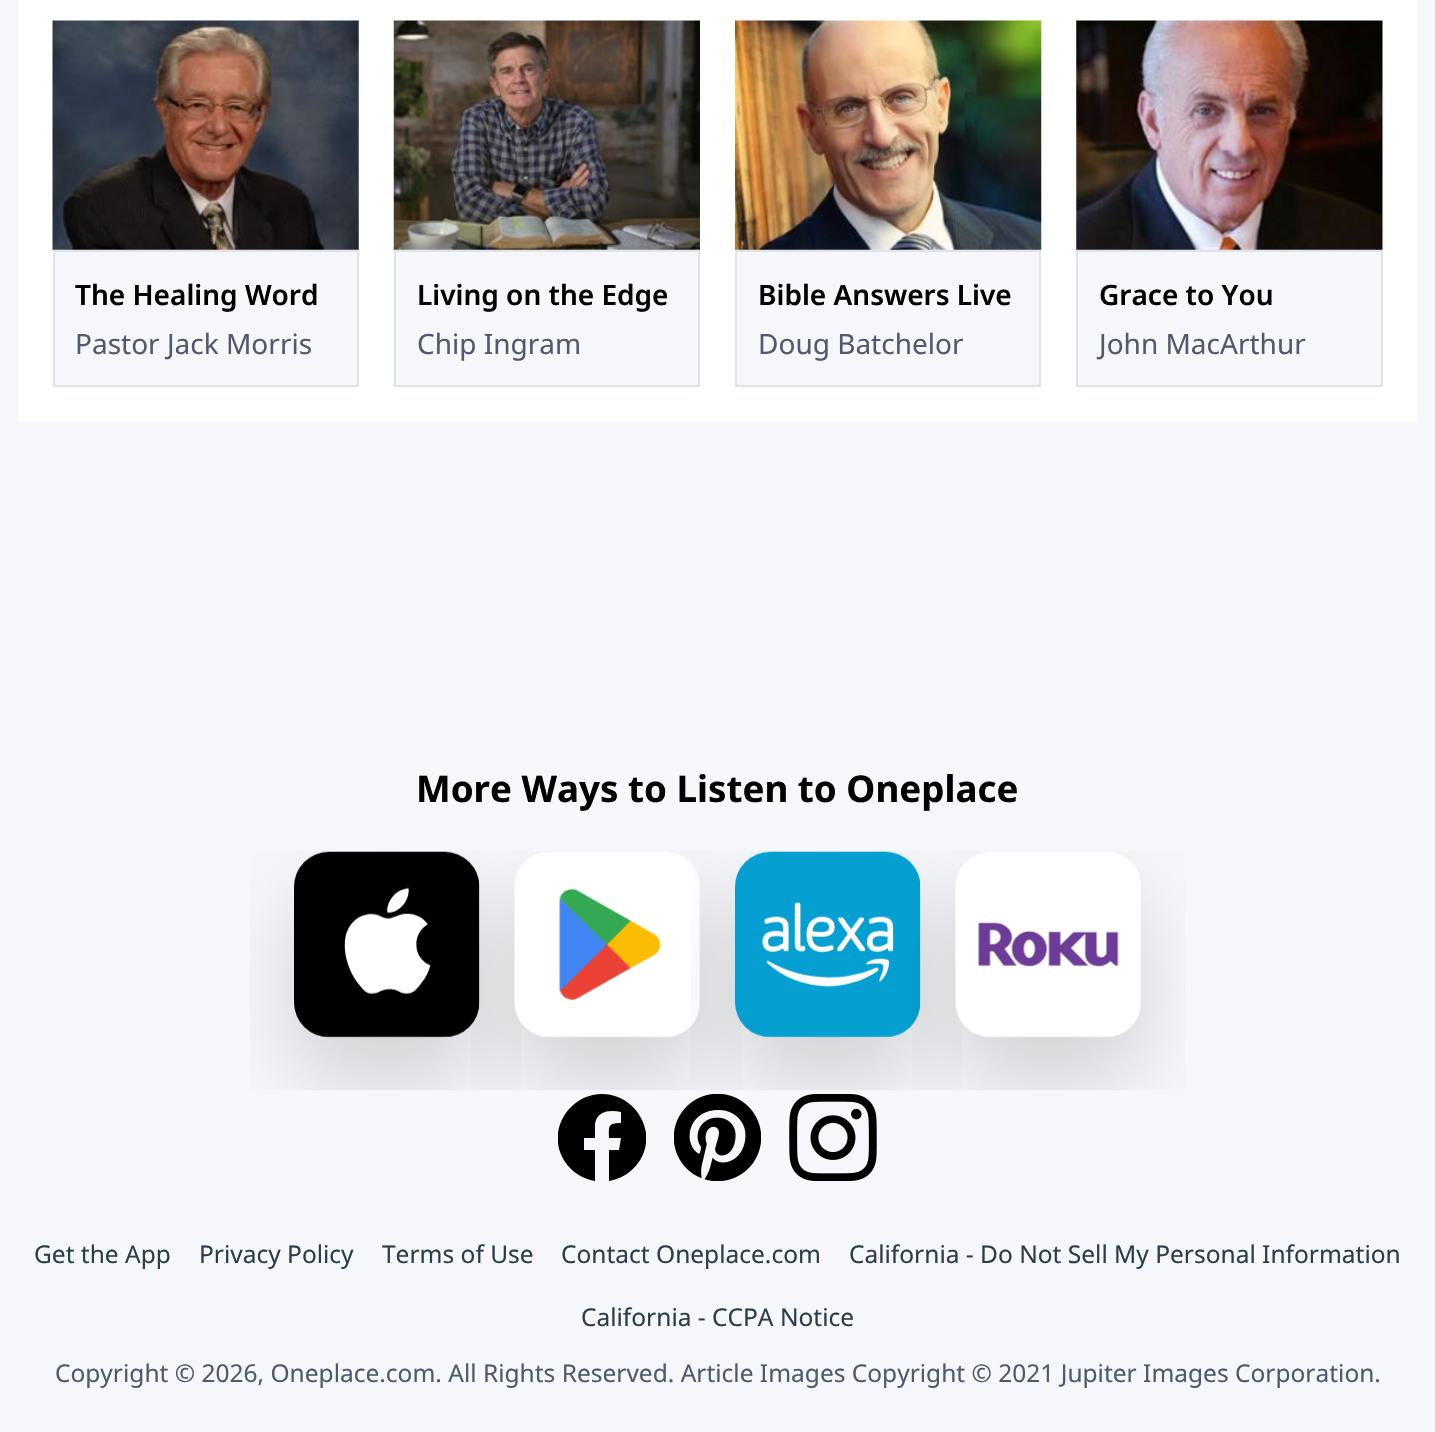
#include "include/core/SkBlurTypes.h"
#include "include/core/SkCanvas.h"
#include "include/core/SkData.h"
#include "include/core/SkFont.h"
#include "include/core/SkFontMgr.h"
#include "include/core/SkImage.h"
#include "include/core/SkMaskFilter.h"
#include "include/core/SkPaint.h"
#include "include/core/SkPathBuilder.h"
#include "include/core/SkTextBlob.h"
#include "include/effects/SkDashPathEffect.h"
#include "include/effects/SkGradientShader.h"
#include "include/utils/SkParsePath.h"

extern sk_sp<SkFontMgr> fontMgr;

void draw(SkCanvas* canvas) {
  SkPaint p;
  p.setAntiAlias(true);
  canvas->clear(SkColorSetRGB(245, 247, 250));
  p.setColor(SK_ColorWHITE);
  canvas->drawRect(SkRect::MakeLTRB(18, 0, 1418, 422), p);
  canvas->drawImageRect(SkImages::DeferredFromEncodedData(SkData::MakeFromFileName("images/1.png")), SkRect::MakeLTRB(52, 20, 359, 250), SkSamplingOptions());
  p.setColor(SkColorSetRGB(245, 247, 250));
  canvas->drawRect(SkRect::MakeLTRB(54, 251, 358, 386), p);
  p.setStyle(SkPaint::kStroke_Style);
  p.setStrokeWidth(2);
  p.setColor(SkColorSetRGB(221, 227, 232));
  canvas->drawRect(SkRect::MakeLTRB(54, 251, 358, 386), p);
  canvas->drawImageRect(SkImages::DeferredFromEncodedData(SkData::MakeFromFileName("images/2.png")), SkRect::MakeLTRB(393, 20, 700, 250), SkSamplingOptions());
  p.setStyle(SkPaint::kFill_Style);
  p.setColor(SkColorSetRGB(245, 247, 250));
  canvas->drawRect(SkRect::MakeLTRB(395, 251, 699, 386), p);
  p.setStyle(SkPaint::kStroke_Style);
  p.setColor(SkColorSetRGB(221, 227, 232));
  canvas->drawRect(SkRect::MakeLTRB(395, 251, 699, 386), p);
  canvas->drawImageRect(SkImages::DeferredFromEncodedData(SkData::MakeFromFileName("images/3.png")), SkRect::MakeLTRB(735, 20, 1042, 250), SkSamplingOptions());
  p.setStyle(SkPaint::kFill_Style);
  p.setColor(SkColorSetRGB(245, 247, 250));
  canvas->drawRect(SkRect::MakeLTRB(736, 251, 1040, 386), p);
  p.setStyle(SkPaint::kStroke_Style);
  p.setColor(SkColorSetRGB(221, 227, 232));
  canvas->drawRect(SkRect::MakeLTRB(736, 251, 1040, 386), p);
  canvas->drawImageRect(SkImages::DeferredFromEncodedData(SkData::MakeFromFileName("images/4.png")), SkRect::MakeLTRB(1076, 20, 1383, 250), SkSamplingOptions());
  p.setStyle(SkPaint::kFill_Style);
  p.setColor(SkColorSetRGB(245, 247, 250));
  canvas->drawRect(SkRect::MakeLTRB(1077, 251, 1382, 386), p);
  p.setStyle(SkPaint::kStroke_Style);
  p.setColor(SkColorSetRGB(221, 227, 232));
  canvas->drawRect(SkRect::MakeLTRB(1077, 251, 1382, 386), p);
  canvas->drawImageRect(SkImages::DeferredFromEncodedData(SkData::MakeFromFileName("images/5.png")), SkRect::MakeLTRB(250, 851, 521, 1090), SkSamplingOptions());
  canvas->drawImageRect(SkImages::DeferredFromEncodedData(SkData::MakeFromFileName("images/6.png")), SkRect::MakeLTRB(471, 851, 741, 1090), SkSamplingOptions());
  canvas->drawImageRect(SkImages::DeferredFromEncodedData(SkData::MakeFromFileName("images/7.png")), SkRect::MakeLTRB(691, 851, 962, 1090), SkSamplingOptions());
  canvas->drawImageRect(SkImages::DeferredFromEncodedData(SkData::MakeFromFileName("images/8.png")), SkRect::MakeLTRB(912, 851, 1185, 1090), SkSamplingOptions());
  p.setStyle(SkPaint::kFill_Style);
  p.setColor(SK_ColorBLACK);
  canvas->drawPath(SkPathBuilder().moveTo(558, 1143).lineTo(558, 1133).cubicTo(561, 1111, 580, 1094, 602, 1094).cubicTo(624, 1094, 643, 1111, 646, 1133).lineTo(646, 1143).cubicTo(644, 1162, 628, 1178, 609, 1181).lineTo(609, 1150).lineTo(619, 1150).lineTo(621, 1138).lineTo(609, 1138).cubicTo(609, 1127, 607, 1123, 621, 1123).lineTo(621, 1112).cubicTo(611, 1110, 597, 1110, 595, 1124).lineTo(595, 1138).lineTo(584, 1138).lineTo(584, 1150).lineTo(595, 1150).lineTo(595, 1181).cubicTo(576, 1178, 560, 1162, 558, 1143).close().detach(), p);
  canvas->drawImageRect(SkImages::DeferredFromEncodedData(SkData::MakeFromFileName("images/9.png")), SkRect::MakeLTRB(674, 1094, 761, 1181), SkSamplingOptions());
  canvas->drawImageRect(SkImages::DeferredFromEncodedData(SkData::MakeFromFileName("images/10.png")), SkRect::MakeLTRB(789, 1094, 877, 1181), SkSamplingOptions());
  SkFont font1(fontMgr->matchFamilyStyle("Noto Sans", SkFontStyle(600, SkFontStyle::kNormal_Width, SkFontStyle::kUpright_Slant)), 28);
  font1.setSubpixel(true);
  canvas->drawString("The Healing Word", 75, 305, font1, p);
  SkFont font2(fontMgr->matchFamilyStyle("Noto Sans", SkFontStyle::Normal()), 28);
  font2.setSubpixel(true);
  p.setColor(SkColorSetRGB(82, 88, 112));
  canvas->drawString("Pastor Jack Morris", 75, 354, font2, p);
  p.setColor(SK_ColorBLACK);
  canvas->drawString("Living on the Edge", 417, 305, font1, p);
  p.setColor(SkColorSetRGB(82, 88, 112));
  canvas->drawString("Chip Ingram", 417, 354, font2, p);
  p.setColor(SK_ColorBLACK);
  canvas->drawString("Bible Answers Live", 758, 305, font1, p);
  p.setColor(SkColorSetRGB(82, 88, 112));
  canvas->drawString("Doug Batchelor", 758, 354, font2, p);
  p.setColor(SK_ColorBLACK);
  canvas->drawString("Grace to You", 1099, 305, font1, p);
  p.setColor(SkColorSetRGB(82, 88, 112));
  canvas->drawString("John MacArthur", 1099, 354, font2, p);
  SkFont font3(fontMgr->matchFamilyStyle("Noto Sans", SkFontStyle::Bold()), 36.75f);
  font3.setSubpixel(true);
  p.setColor(SK_ColorBLACK);
  canvas->drawString("More Ways to Listen to Oneplace", 416, 802, font3, p);
  SkFont font4(fontMgr->matchFamilyStyle("Noto Sans", SkFontStyle::Normal()), 24.5f);
  font4.setSubpixel(true);
  p.setColor(SkColorSetRGB(46, 61, 77));
  canvas->drawString("Get the App", 34, 1263, font4, p);
  canvas->drawString("Privacy Policy", 199, 1263, font4, p);
  canvas->drawString("Terms of Use", 382, 1263, font4, p);
  canvas->drawString("Contact Oneplace.com", 561, 1263, font4, p);
  canvas->drawString("California - Do Not Sell My Personal Information", 849, 1263, font4, p);
  canvas->drawString("California - CCPA Notice", 581, 1326, font4, p);
  p.setColor(SkColorSetRGB(82, 88, 112));
  canvas->drawString("Copyright © 2026, Oneplace.com. All Rights Reserved. Article Images Copyright © 2021 Jupiter Images Corporation.", 55, 1382, font4, p);
}
